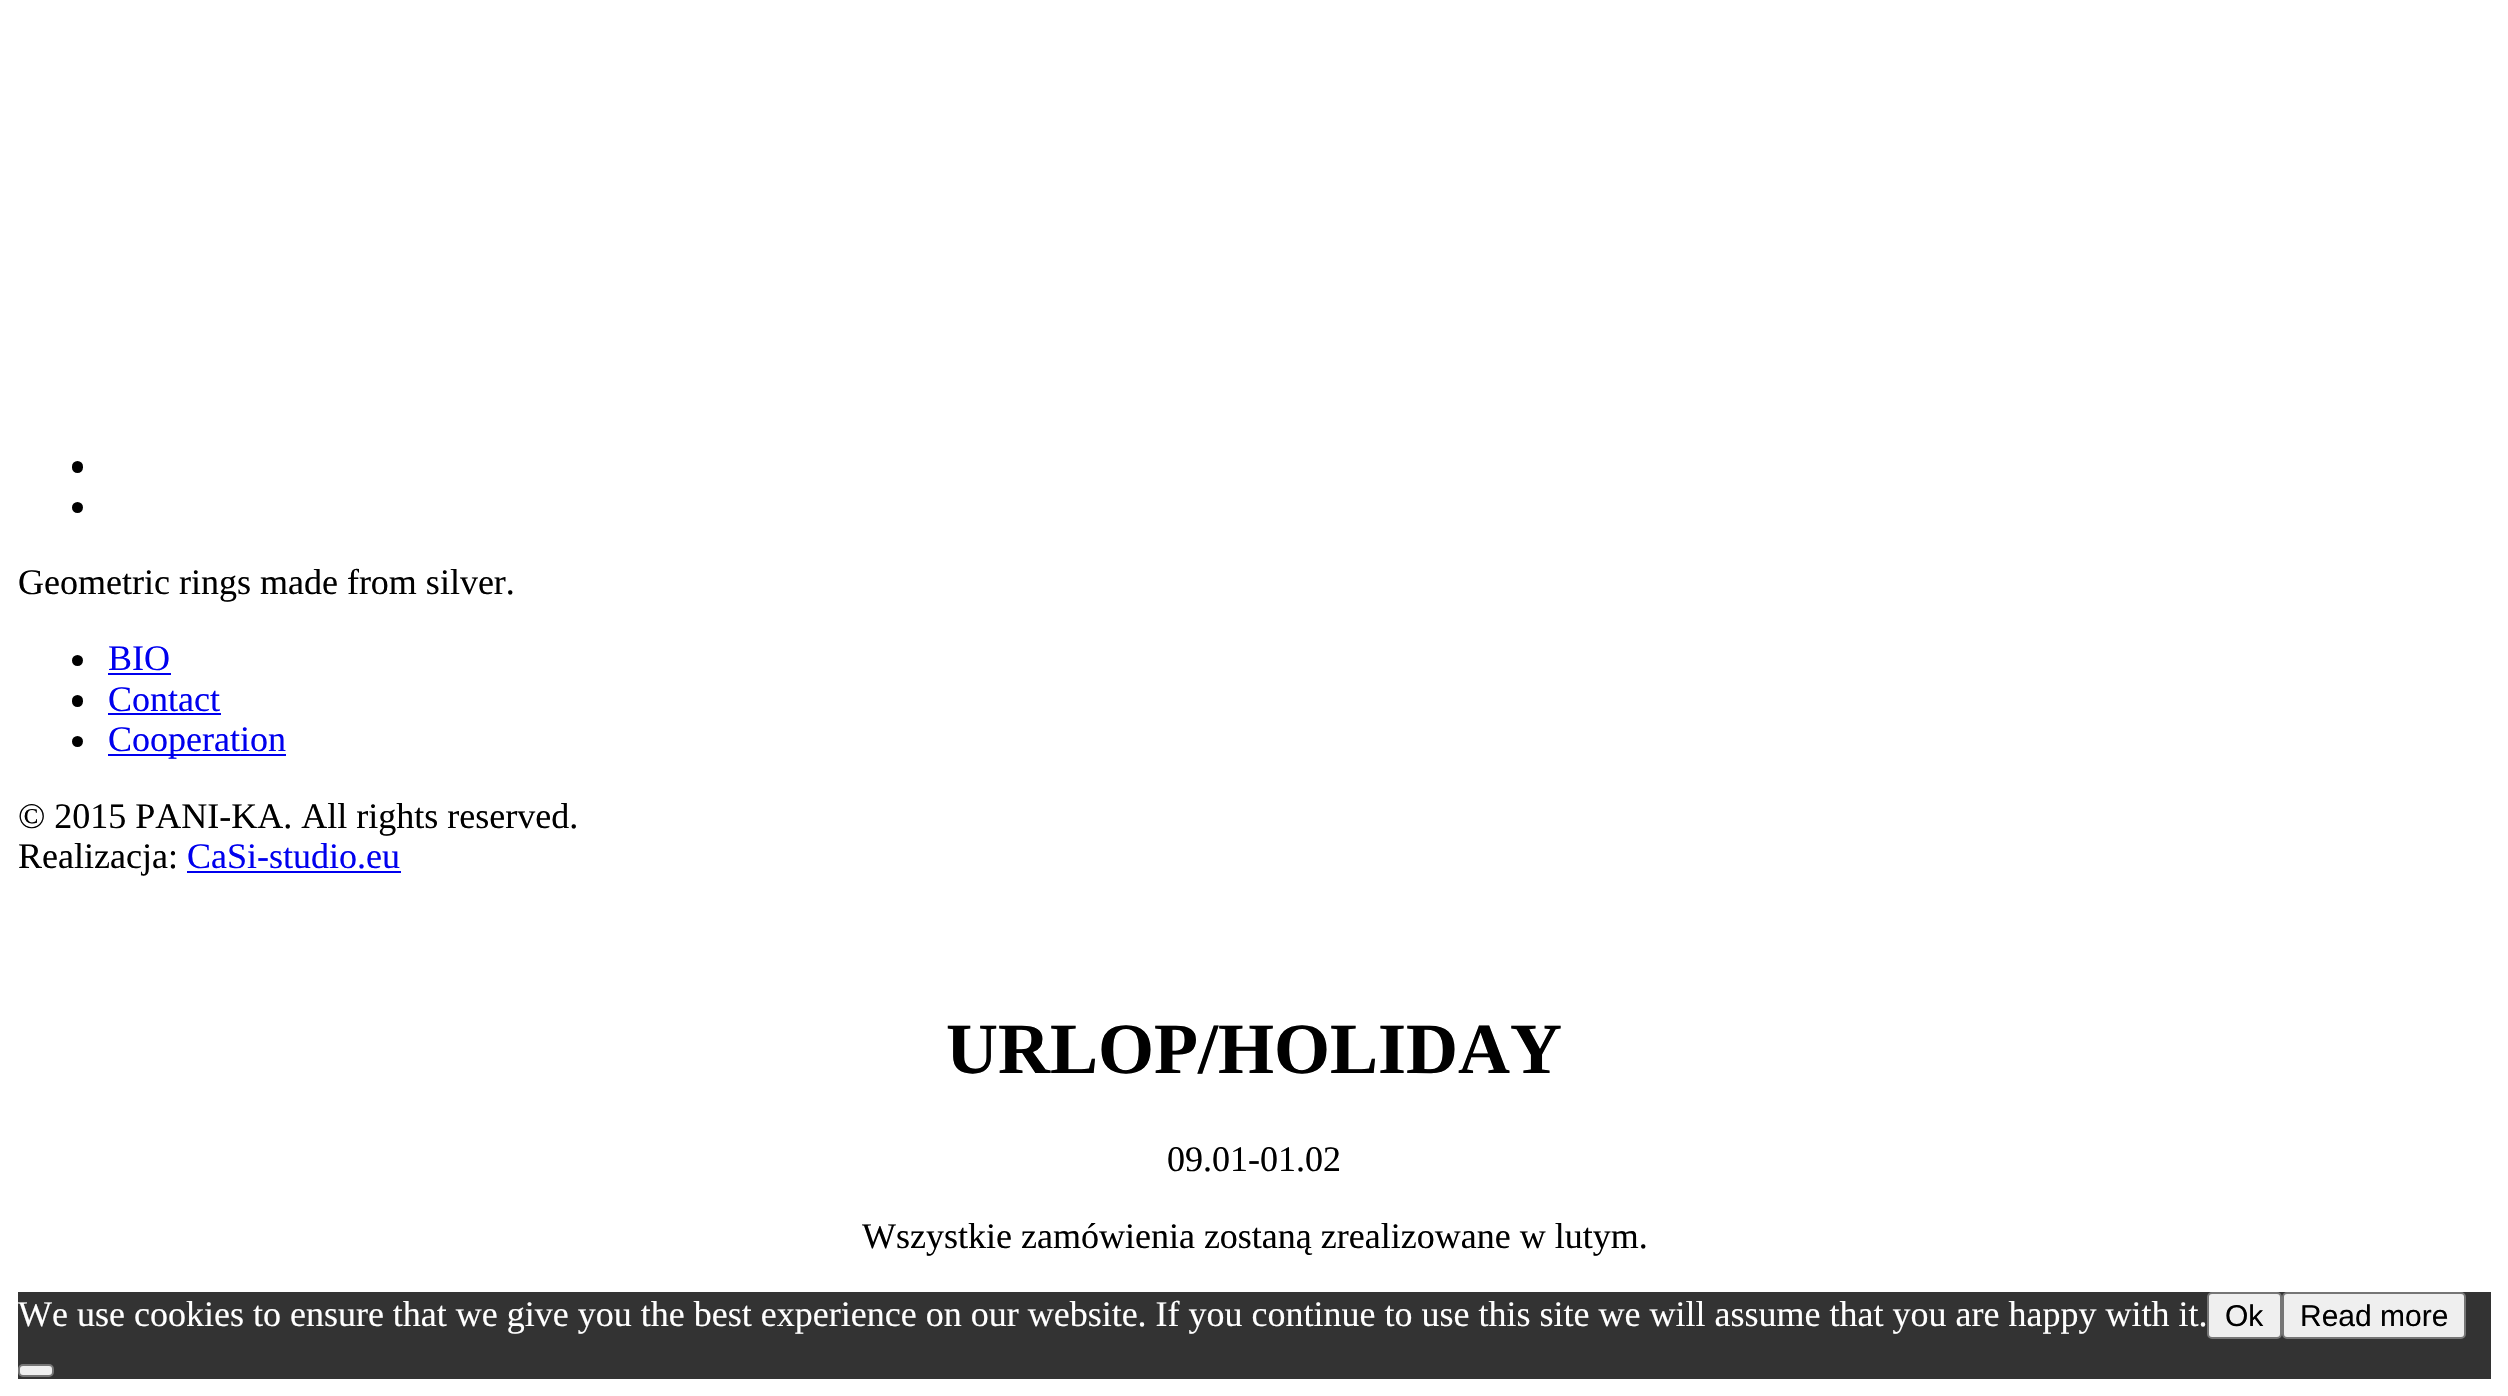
#include "include/core/SkBlurTypes.h"
#include "include/core/SkCanvas.h"
#include "include/core/SkData.h"
#include "include/core/SkFont.h"
#include "include/core/SkFontMgr.h"
#include "include/core/SkImage.h"
#include "include/core/SkMaskFilter.h"
#include "include/core/SkPaint.h"
#include "include/core/SkPathBuilder.h"
#include "include/core/SkTextBlob.h"
#include "include/effects/SkDashPathEffect.h"
#include "include/effects/SkGradientShader.h"
#include "include/utils/SkParsePath.h"

extern sk_sp<SkFontMgr> fontMgr;

void draw(SkCanvas* canvas) {
  SkPaint p;
  p.setAntiAlias(true);
  canvas->clear(SK_ColorWHITE);
  p.setColor(SK_ColorBLACK);
  canvas->drawRoundRect(SkRect::MakeLTRB(72, 461, 83, 473), 5.5f, 5.5f, p);
  canvas->drawCircle(77.5f, 507.5f, 5.5f, p);
  canvas->drawCircle(77.5f, 660.5f, 5.5f, p);
  p.setColor(SkColorSetRGB(0, 0, 238));
  canvas->drawRect(SkRect::MakeLTRB(108, 673, 171, 675), p);
  p.setColor(SK_ColorBLACK);
  canvas->drawRoundRect(SkRect::MakeLTRB(72, 695, 83, 707), 5.5f, 5.5f, p);
  p.setColor(SkColorSetRGB(0, 0, 238));
  canvas->drawRect(SkRect::MakeLTRB(108, 713, 221, 715), p);
  p.setColor(SK_ColorBLACK);
  canvas->drawCircle(77.5f, 741.5f, 5.5f, p);
  p.setColor(SkColorSetRGB(0, 0, 238));
  canvas->drawRect(SkRect::MakeLTRB(108, 754, 286, 756), p);
  canvas->drawRect(SkRect::MakeLTRB(187, 871, 401, 873), p);
  p.setColor(SkColorSetRGB(51, 51, 51));
  canvas->drawRect(SkRect::MakeLTRB(18, 1292, 2491, 1379), p);
  p.setColor(SkColorSetRGB(239, 239, 239));
  canvas->drawRoundRect(SkRect::MakeLTRB(2208, 1293, 2281, 1338), 4, 4, p);
  p.setStyle(SkPaint::kStroke_Style);
  p.setStrokeWidth(2);
  p.setColor(SkColorSetRGB(118, 118, 118));
  canvas->drawRoundRect(SkRect::MakeLTRB(2208, 1293, 2281, 1338), 4, 4, p);
  p.setStyle(SkPaint::kFill_Style);
  p.setColor(SkColorSetRGB(239, 239, 239));
  canvas->drawRoundRect(SkRect::MakeLTRB(2283, 1293, 2465, 1338), 4, 4, p);
  p.setStyle(SkPaint::kStroke_Style);
  p.setColor(SkColorSetRGB(118, 118, 118));
  canvas->drawRoundRect(SkRect::MakeLTRB(2283, 1293, 2465, 1338), 4, 4, p);
  p.setStyle(SkPaint::kFill_Style);
  p.setColor(SkColorSetRGB(239, 239, 239));
  canvas->drawRoundRect(SkRect::MakeLTRB(19, 1365, 53, 1376), 4, 4, p);
  p.setStyle(SkPaint::kStroke_Style);
  p.setColor(SkColorSetRGB(118, 118, 118));
  canvas->drawRoundRect(SkRect::MakeLTRB(19, 1365, 53, 1376), 4, 4, p);
  SkFont font1(fontMgr->matchFamilyStyle("Liberation Serif", SkFontStyle::Normal()), 36);
  font1.setSubpixel(true);
  p.setStyle(SkPaint::kFill_Style);
  p.setColor(SK_ColorBLACK);
  canvas->drawString("Geometric rings made from silver.", 18, 594, font1, p);
  p.setColor(SkColorSetRGB(0, 0, 238));
  canvas->drawString("BIO", 108, 670, font1, p);
  canvas->drawString("Contact", 108, 711, font1, p);
  canvas->drawString("Cooperation", 108, 751, font1, p);
  p.setColor(SK_ColorBLACK);
  canvas->drawString("© 2015 PANI-KA. All rights reserved.", 18, 828, font1, p);
  canvas->drawString("Realizacja:", 18, 868, font1, p);
  p.setColor(SkColorSetRGB(0, 0, 238));
  canvas->drawString("CaSi-studio.eu", 187, 868, font1, p);
  SkFont font2(fontMgr->matchFamilyStyle("Liberation Serif", SkFontStyle::Bold()), 72);
  font2.setSubpixel(true);
  p.setColor(SK_ColorBLACK);
  canvas->drawString("URLOP/HOLIDAY", 946, 1073, font2, p);
  canvas->drawString("09.01-01.02", 1167, 1171, font1, p);
  canvas->drawString("Wszystkie zamówienia zostaną zrealizowane w lutym.", 862, 1248, font1, p);
  p.setColor(SK_ColorWHITE);
  canvas->drawString("We use cookies to ensure that we give you the best experience on our website. If you continue to use this site we will assume that you are happy with it.", 18, 1326, font1, p);
  SkFont font3(fontMgr->matchFamilyStyle("Liberation Sans", SkFontStyle::Normal()), 30);
  font3.setSubpixel(true);
  p.setColor(SK_ColorBLACK);
  canvas->drawString("Ok", 2225, 1326, font3, p);
  canvas->drawString("Read more", 2300, 1326, font3, p);
}
